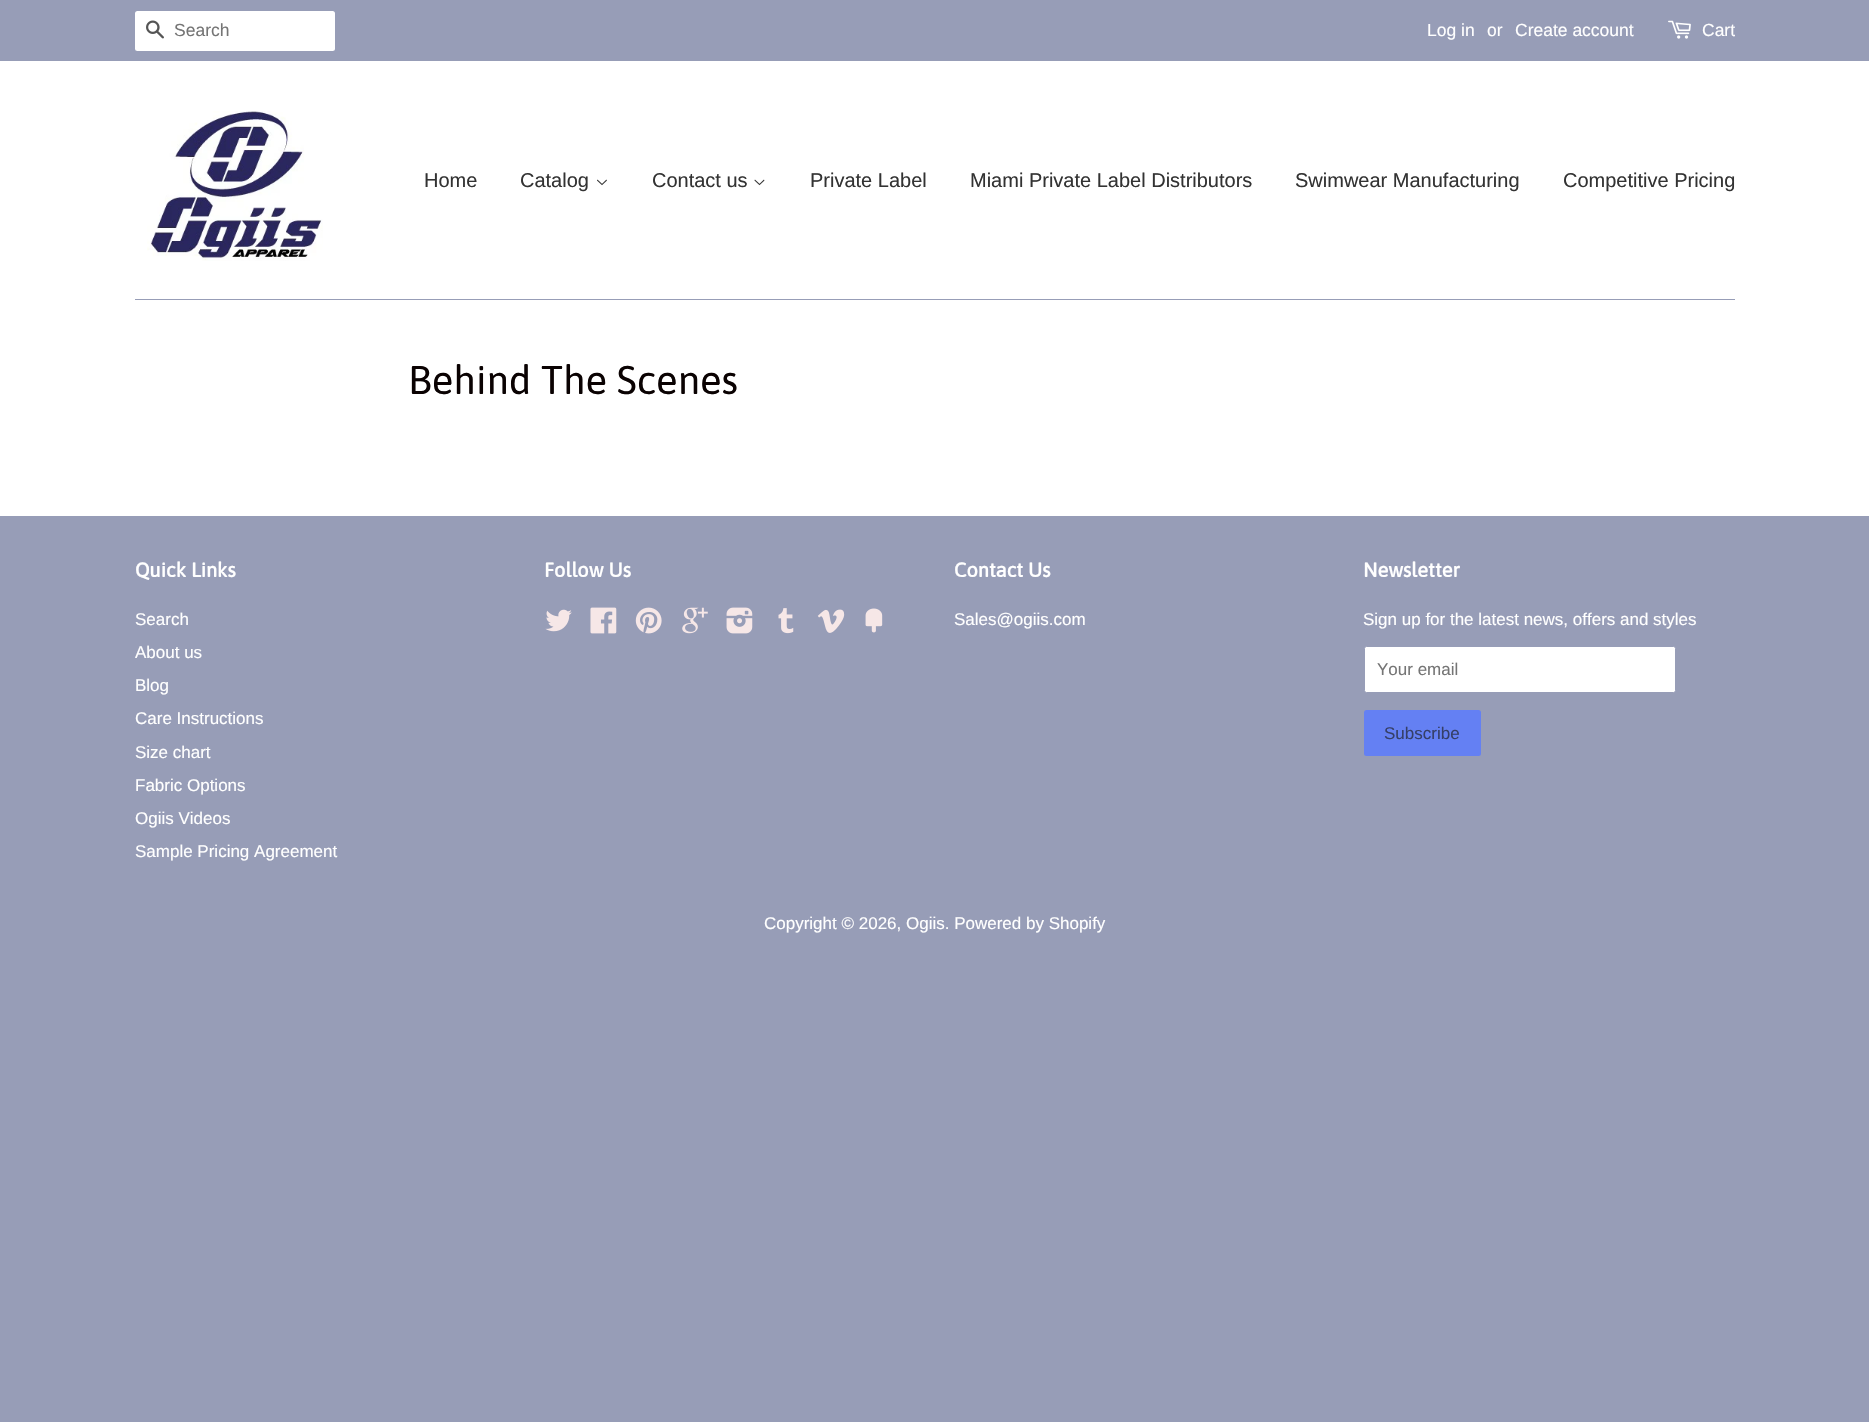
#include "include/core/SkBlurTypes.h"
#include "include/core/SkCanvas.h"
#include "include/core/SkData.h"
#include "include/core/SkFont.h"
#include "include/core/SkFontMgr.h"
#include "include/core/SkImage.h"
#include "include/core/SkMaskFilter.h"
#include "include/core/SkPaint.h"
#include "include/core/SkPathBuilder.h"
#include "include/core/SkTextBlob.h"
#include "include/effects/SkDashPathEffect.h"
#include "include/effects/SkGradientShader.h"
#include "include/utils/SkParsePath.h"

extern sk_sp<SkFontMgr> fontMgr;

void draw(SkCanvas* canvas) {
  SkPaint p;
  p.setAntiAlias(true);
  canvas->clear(SkColorSetRGB(151, 157, 183));
  p.setColor(SK_ColorWHITE);
  canvas->drawRect(SkRect::MakeLTRB(0, 61, 1869, 516), p);
  canvas->drawRoundRect(SkRect::MakeLTRB(135, 11, 335, 51), 2.5f, 2.5f, p);
  canvas->drawImageRect(SkImages::DeferredFromEncodedData(SkData::MakeFromFileName("images/1.png")), SkRect::MakeLTRB(146, 20, 164, 39), SkSamplingOptions());
  canvas->drawImageRect(SkImages::DeferredFromEncodedData(SkData::MakeFromFileName("images/2.png")), SkRect::MakeLTRB(1668, 20, 1691, 39), SkSamplingOptions());
  p.setColor(SkColorSetRGB(151, 157, 183));
  canvas->drawRect(SkRect::MakeLTRB(135, 299, 1735, 300), p);
  canvas->drawImageRect(SkImages::DeferredFromEncodedData(SkData::MakeFromFileName("images/3.png")), SkRect::MakeLTRB(147, 111, 323, 261), SkSamplingOptions());
  canvas->drawImageRect(SkImages::DeferredFromEncodedData(SkData::MakeFromFileName("images/4.png")), SkRect::MakeLTRB(597, 179, 607, 186), SkSamplingOptions());
  canvas->drawImageRect(SkImages::DeferredFromEncodedData(SkData::MakeFromFileName("images/5.png")), SkRect::MakeLTRB(754, 179, 765, 186), SkSamplingOptions());
  canvas->drawImageRect(SkImages::DeferredFromEncodedData(SkData::MakeFromFileName("images/6.png")), SkRect::MakeLTRB(545, 609, 572, 632), SkSamplingOptions());
  canvas->drawImageRect(SkImages::DeferredFromEncodedData(SkData::MakeFromFileName("images/7.png")), SkRect::MakeLTRB(590, 607, 617, 634), SkSamplingOptions());
  canvas->drawImageRect(SkImages::DeferredFromEncodedData(SkData::MakeFromFileName("images/8.png")), SkRect::MakeLTRB(635, 607, 662, 634), SkSamplingOptions());
  canvas->drawImageRect(SkImages::DeferredFromEncodedData(SkData::MakeFromFileName("images/9.png")), SkRect::MakeLTRB(682, 607, 708, 634), SkSamplingOptions());
  canvas->drawImageRect(SkImages::DeferredFromEncodedData(SkData::MakeFromFileName("images/10.png")), SkRect::MakeLTRB(726, 607, 753, 634), SkSamplingOptions());
  canvas->drawImageRect(SkImages::DeferredFromEncodedData(SkData::MakeFromFileName("images/11.png")), SkRect::MakeLTRB(778, 608, 794, 634), SkSamplingOptions());
  canvas->drawImageRect(SkImages::DeferredFromEncodedData(SkData::MakeFromFileName("images/12.png")), SkRect::MakeLTRB(817, 609, 845, 633), SkSamplingOptions());
  canvas->drawImageRect(SkImages::DeferredFromEncodedData(SkData::MakeFromFileName("images/13.png")), SkRect::MakeLTRB(865, 608, 883, 633), SkSamplingOptions());
  p.setColor(SK_ColorWHITE);
  canvas->drawRoundRect(SkRect::MakeLTRB(1364.5f, 646.5f, 1675.5f, 692.5f), 2, 2, p);
  p.setStyle(SkPaint::kStroke_Style);
  p.setStrokeWidth(1);
  p.setColor(SkColorSetRGB(151, 157, 183));
  canvas->drawRoundRect(SkRect::MakeLTRB(1364.5f, 646.5f, 1675.5f, 692.5f), 2, 2, p);
  p.setStyle(SkPaint::kFill_Style);
  p.setColor(SkColorSetRGB(100, 128, 243));
  canvas->drawRoundRect(SkRect::MakeLTRB(1364, 710, 1481, 756), 2.5f, 2.5f, p);
  SkFont font1(fontMgr->matchFamilyStyle("Liberation Sans", SkFontStyle::Normal()), 17.5f);
  font1.setSubpixel(true);
  p.setColor(SkColorSetRGB(117, 117, 117));
  canvas->drawString("Search", 174, 36, font1, p);
  p.setColor(SK_ColorWHITE);
  canvas->drawString("Log in", 1427, 36, font1, p);
  canvas->drawString("or", 1487, 36, font1, p);
  canvas->drawString("Create account", 1515, 36, font1, p);
  canvas->drawString("Cart", 1702, 36, font1, p);
  SkFont font2(fontMgr->matchFamilyStyle("Liberation Sans", SkFontStyle::Normal()), 20);
  font2.setSubpixel(true);
  p.setColor(SkColorSetRGB(51, 51, 51));
  canvas->drawString("Home", 424, 187, font2, p);
  canvas->drawString("Catalog", 520, 187, font2, p);
  canvas->drawString("Contact us", 652, 187, font2, p);
  canvas->drawString("Private Label", 810, 187, font2, p);
  canvas->drawString("Miami Private Label Distributors", 970, 187, font2, p);
  canvas->drawString("Swimwear Manufacturing", 1295, 187, font2, p);
  canvas->drawString("Competitive Pricing", 1563, 187, font2, p);
  SkFont font3(fontMgr->matchFamilyStyle("Asap", SkFontStyle::Normal()), 40);
  font3.setSubpixel(true);
  p.setColor(SkColorSetRGB(10, 2, 2));
  canvas->drawString("Behind The Scenes", 408, 394, font3, p);
  SkFont font4(fontMgr->matchFamilyStyle("Asap", SkFontStyle::Bold()), 20);
  font4.setSubpixel(true);
  p.setColor(SK_ColorWHITE);
  canvas->drawString("Quick Links", 135, 577, font4, p);
  SkFont font5(fontMgr->matchFamilyStyle("Liberation Sans", SkFontStyle::Normal()), 17);
  font5.setSubpixel(true);
  canvas->drawString("Search", 135, 625, font5, p);
  canvas->drawString("About us", 135, 658, font5, p);
  canvas->drawString("Blog", 135, 691, font5, p);
  canvas->drawString("Care Instructions", 135, 724, font5, p);
  canvas->drawString("Size chart", 135, 758, font5, p);
  canvas->drawString("Fabric Options", 135, 791, font5, p);
  canvas->drawString("Ogiis Videos", 135, 824, font5, p);
  canvas->drawString("Sample Pricing Agreement", 135, 857, font5, p);
  canvas->drawString("Follow Us", 544, 577, font4, p);
  canvas->drawString("Contact Us", 954, 577, font4, p);
  canvas->drawString("Sales@ogiis.com", 954, 625, font5, p);
  canvas->drawString("Newsletter", 1363, 577, font4, p);
  canvas->drawString("Sign up for the latest news, offers and styles", 1363, 625, font5, p);
  p.setColor(SkColorSetRGB(117, 117, 117));
  canvas->drawString("Your email", 1377, 675, font5, p);
  p.setColor(SkColorSetRGB(53, 63, 104));
  canvas->drawString("Subscribe", 1384, 739, font5, p);
  p.setColor(SK_ColorWHITE);
  canvas->drawString("Copyright © 2026, Ogiis. Powered by Shopify", 764, 929, font5, p);
}
